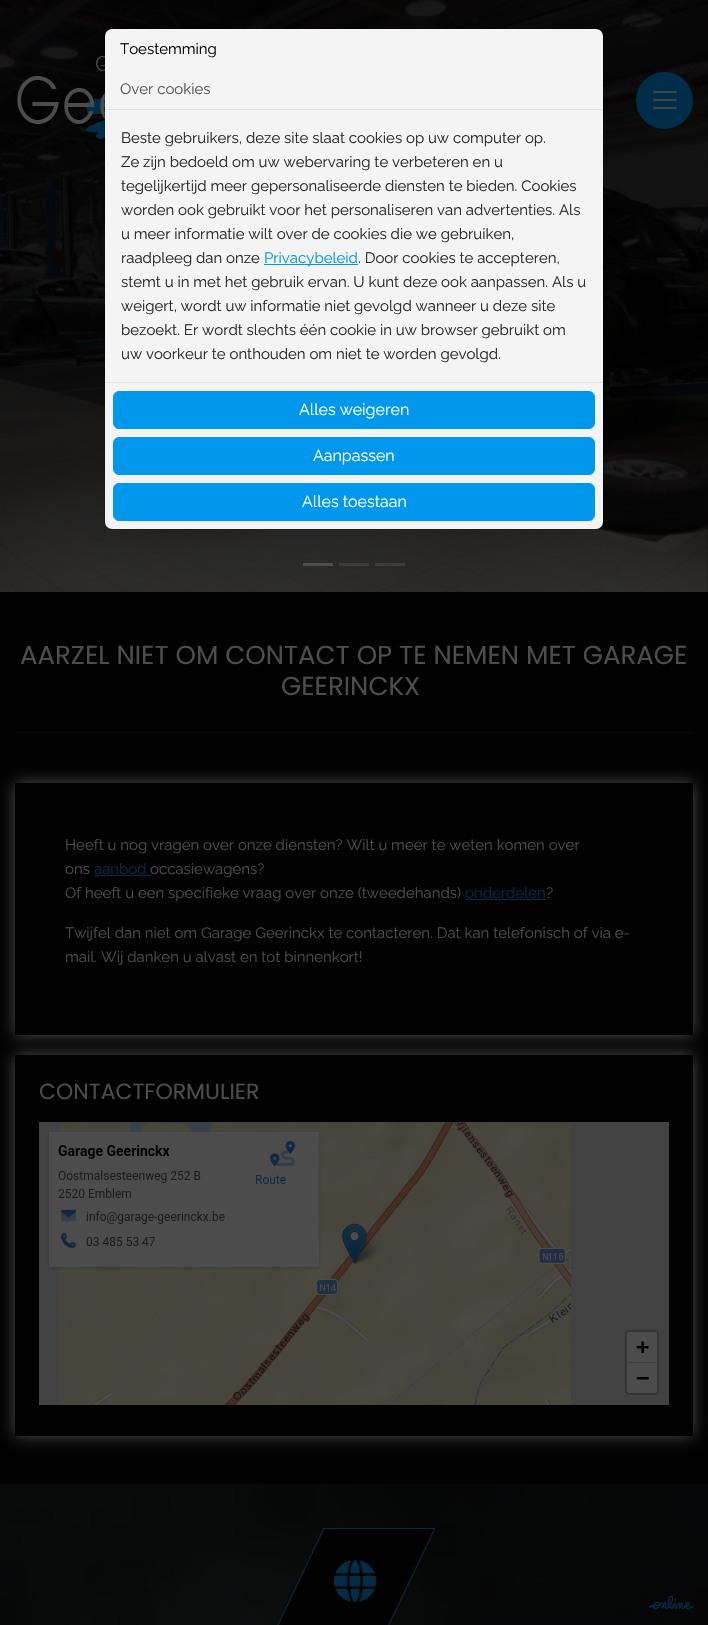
#include "include/core/SkBlurTypes.h"
#include "include/core/SkCanvas.h"
#include "include/core/SkData.h"
#include "include/core/SkFont.h"
#include "include/core/SkFontMgr.h"
#include "include/core/SkImage.h"
#include "include/core/SkMaskFilter.h"
#include "include/core/SkPaint.h"
#include "include/core/SkPathBuilder.h"
#include "include/core/SkTextBlob.h"
#include "include/effects/SkDashPathEffect.h"
#include "include/effects/SkGradientShader.h"
#include "include/utils/SkParsePath.h"

extern sk_sp<SkFontMgr> fontMgr;

void draw(SkCanvas* canvas) {
  SkPaint p;
  p.setAntiAlias(true);
  canvas->clear(SkColorSetRGB(1, 1, 1));
  canvas->drawImageRect(SkImages::DeferredFromEncodedData(SkData::MakeFromFileName("images/1.png")), SkRect::MakeLTRB(0, 0, 708, 592), SkSamplingOptions());
  canvas->drawImageRect(SkImages::DeferredFromEncodedData(SkData::MakeFromFileName("images/2.png")), SkRect::MakeLTRB(0, 0, 708, 592), SkSamplingOptions());
  p.setColor(SkColorSetRGB(244, 244, 244));
  canvas->drawRoundRect(SkRect::MakeLTRB(105, 29, 603, 529), 7, 7, p);
  canvas->drawImageRect(SkImages::DeferredFromEncodedData(SkData::MakeFromFileName("images/3.png")), SkRect::MakeLTRB(17, 56, 105, 139), SkSamplingOptions());
  p.setStyle(SkPaint::kStroke_Style);
  p.setStrokeWidth(1);
  p.setColor(SkColorSetARGB(46, 0, 0, 0));
  canvas->drawRoundRect(SkRect::MakeLTRB(104.5f, 28.5f, 603.5f, 529.5f), 7.5f, 7.5f, p);
  p.setStyle(SkPaint::kFill_Style);
  p.setColor(SkColorSetRGB(222, 226, 230));
  canvas->drawRect(SkRect::MakeLTRB(105, 109, 603, 110), p);
  p.setColor(SkColorSetRGB(0, 151, 236));
  canvas->drawRect(SkRect::MakeLTRB(264, 264, 358, 265), p);
  p.setColor(SkColorSetRGB(222, 226, 230));
  canvas->drawRect(SkRect::MakeLTRB(105, 382, 603, 383), p);
  p.setColor(SkColorSetRGB(0, 151, 236));
  canvas->drawRoundRect(SkRect::MakeLTRB(113.5f, 391.5f, 594.5f, 428.5f), 5.5f, 5.5f, p);
  p.setStyle(SkPaint::kStroke_Style);
  canvas->drawRoundRect(SkRect::MakeLTRB(113.5f, 391.5f, 594.5f, 428.5f), 5.5f, 5.5f, p);
  p.setStyle(SkPaint::kFill_Style);
  canvas->drawRoundRect(SkRect::MakeLTRB(113.5f, 437.5f, 594.5f, 474.5f), 5.5f, 5.5f, p);
  p.setStyle(SkPaint::kStroke_Style);
  canvas->drawRoundRect(SkRect::MakeLTRB(113.5f, 437.5f, 594.5f, 474.5f), 5.5f, 5.5f, p);
  p.setStyle(SkPaint::kFill_Style);
  canvas->drawRoundRect(SkRect::MakeLTRB(113.5f, 483.5f, 594.5f, 520.5f), 5.5f, 5.5f, p);
  p.setStyle(SkPaint::kStroke_Style);
  canvas->drawRoundRect(SkRect::MakeLTRB(113.5f, 483.5f, 594.5f, 520.5f), 5.5f, 5.5f, p);
  p.setStyle(SkPaint::kFill_Style);
  p.setColor(SkColorSetRGB(77, 77, 77));
  canvas->drawRect(SkRect::MakeLTRB(303, 563, 333, 566), p);
  p.setColor(SkColorSetARGB(128, 77, 77, 77));
  canvas->drawRect(SkRect::MakeLTRB(339, 563, 369, 566), p);
  canvas->drawRect(SkRect::MakeLTRB(375, 563, 405, 566), p);
  p.setColor(SkColorSetRGB(0, 45, 71));
  canvas->drawCircle(664.5f, 100.5f, 28.5f, p);
  canvas->drawImageRect(SkImages::DeferredFromEncodedData(SkData::MakeFromFileName("images/4.png")), SkRect::MakeLTRB(653, 91, 677, 109), SkSamplingOptions());
  p.setColor(SkColorSetRGB(13, 13, 13));
  canvas->drawRect(SkRect::MakeLTRB(15, 732, 693, 733), p);
  canvas->save();
  canvas->clipPath(SkPathBuilder(SkPathFillType::kEvenOdd).moveTo(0, 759).lineTo(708, 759).lineTo(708, 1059).lineTo(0, 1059).close().moveTo(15, 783).lineTo(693, 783).lineTo(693, 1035).lineTo(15, 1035).close().detach(), true);
  p.setColor(SkColorSetRGB(77, 77, 77));
  p.setMaskFilter(SkMaskFilter::MakeBlur(kNormal_SkBlurStyle, 7.5f));
  canvas->drawRect(SkRect::MakeLTRB(15, 783, 693, 1035), p);
  p.setMaskFilter(nullptr);
  canvas->restore();
  p.setColor(SkColorSetRGB(0, 45, 71));
  canvas->drawRect(SkRect::MakeLTRB(94, 875, 150, 876), p);
  canvas->drawRect(SkRect::MakeLTRB(465, 899, 546, 900), p);
  canvas->save();
  canvas->clipPath(SkPathBuilder(SkPathFillType::kEvenOdd).moveTo(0, 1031).lineTo(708, 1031).lineTo(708, 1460).lineTo(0, 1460).close().moveTo(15, 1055).lineTo(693, 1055).lineTo(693, 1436).lineTo(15, 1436).close().detach(), true);
  p.setColor(SkColorSetRGB(77, 77, 77));
  p.setMaskFilter(SkMaskFilter::MakeBlur(kNormal_SkBlurStyle, 7.5f));
  canvas->drawRect(SkRect::MakeLTRB(15, 1055, 693, 1436), p);
  p.setMaskFilter(nullptr);
  canvas->restore();
  canvas->drawImageRect(SkImages::DeferredFromEncodedData(SkData::MakeFromFileName("images/5.png")), SkRect::MakeLTRB(39, 1122, 669, 1405), SkSamplingOptions());
  canvas->drawImageRect(SkImages::DeferredFromEncodedData(SkData::MakeFromFileName("images/6.png")), SkRect::MakeLTRB(0, 1484, 708, 1625), SkSamplingOptions());
  canvas->drawImageRect(SkImages::DeferredFromEncodedData(SkData::MakeFromFileName("images/7.png")), SkRect::MakeLTRB(277, 1528, 435, 1625), SkSamplingOptions());
  canvas->drawImageRect(SkImages::DeferredFromEncodedData(SkData::MakeFromFileName("images/8.png")), SkRect::MakeLTRB(649, 1595, 694, 1610), SkSamplingOptions());
  SkFont font1(fontMgr->matchFamilyStyle("Raleway", SkFontStyle::Normal()), 15);
  font1.setSubpixel(true);
  p.setColor(SK_ColorBLACK);
  canvas->drawString("Toestemming", 120, 54, font1, p);
  p.setColor(SkColorSetRGB(85, 85, 85));
  canvas->drawString("Over cookies", 120, 94, font1, p);
  p.setColor(SkColorSetRGB(40, 40, 40));
  canvas->drawString("Beste gebruikers, deze site slaat cookies op uw computer op.", 121, 143, font1, p);
  canvas->drawString("Ze zijn bedoeld om uw webervaring te verbeteren en u", 121, 167, font1, p);
  canvas->drawString("tegelijkertijd meer gepersonaliseerde diensten te bieden. Cookies", 121, 191, font1, p);
  canvas->drawString("worden ook gebruikt voor het personaliseren van advertenties. Als", 121, 215, font1, p);
  canvas->drawString("u meer informatie wilt over de cookies die we gebruiken,", 121, 239, font1, p);
  canvas->drawString("raadpleeg dan onze", 121, 263, font1, p);
  p.setColor(SkColorSetRGB(0, 151, 236));
  canvas->drawString("Privacybeleid", 264, 263, font1, p);
  p.setColor(SkColorSetRGB(40, 40, 40));
  canvas->drawString(". Door cookies te accepteren,", 358, 263, font1, p);
  canvas->drawString("stemt u in met het gebruik ervan. U kunt deze ook aanpassen. Als u", 121, 287, font1, p);
  canvas->drawString("weigert, wordt uw informatie niet gevolgd wanneer u deze site", 121, 311, font1, p);
  canvas->drawString("bezoekt. Er wordt slechts één cookie in uw browser gebruikt om", 121, 335, font1, p);
  canvas->drawString("uw voorkeur te onthouden om niet te worden gevolgd.", 121, 359, font1, p);
  SkFont font2(fontMgr->matchFamilyStyle("Raleway", SkFontStyle::Normal()), 16);
  font2.setSubpixel(true);
  p.setColor(SK_ColorWHITE);
  canvas->drawString("Alles weigeren", 299, 415, font2, p);
  canvas->drawString("Aanpassen", 313, 461, font2, p);
  canvas->drawString("Alles toestaan", 302, 507, font2, p);
  SkFont font3(fontMgr->matchFamilyStyle("Poppins", SkFontStyle::Normal()), 26);
  font3.setSubpixel(true);
  p.setColor(SkColorSetRGB(77, 77, 77));
  canvas->drawString("AARZEL NIET OM CONTACT OP TE NEMEN MET GARAGE", 20, 664, font3, p);
  canvas->drawString("GEERINCKX", 281, 695, font3, p);
  canvas->drawString("Heeft u nog vragen over onze diensten? Wilt u meer te weten komen over", 65, 850, font1, p);
  canvas->drawString("ons", 65, 874, font1, p);
  p.setColor(SkColorSetRGB(0, 45, 71));
  canvas->drawString("aanbod", 94, 874, font1, p);
  p.setColor(SkColorSetRGB(77, 77, 77));
  canvas->drawString("occasiewagens?", 150, 874, font1, p);
  canvas->drawString("Of heeft u een specifieke vraag over onze (tweedehands)", 65, 898, font1, p);
  p.setColor(SkColorSetRGB(0, 45, 71));
  canvas->drawString("onderdelen", 465, 898, font1, p);
  p.setColor(SkColorSetRGB(77, 77, 77));
  canvas->drawString("?", 546, 898, font1, p);
  canvas->drawString("Twijfel dan niet om Garage Geerinckx te contacteren. Dat kan telefonisch of via e-", 65, 938, font1, p);
  canvas->drawString("mail. Wij danken u alvast en tot binnenkort!", 65, 962, font1, p);
  SkFont font4(fontMgr->matchFamilyStyle("Poppins", SkFontStyle::Normal()), 22);
  font4.setSubpixel(true);
  canvas->drawString("CONTACTFORMULIER", 39, 1099, font4, p);
}
